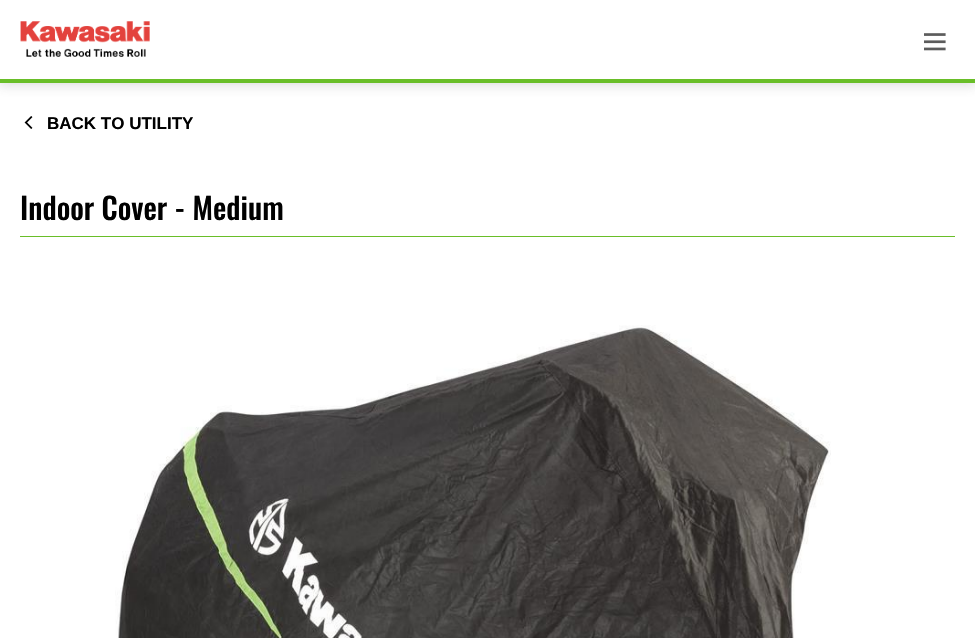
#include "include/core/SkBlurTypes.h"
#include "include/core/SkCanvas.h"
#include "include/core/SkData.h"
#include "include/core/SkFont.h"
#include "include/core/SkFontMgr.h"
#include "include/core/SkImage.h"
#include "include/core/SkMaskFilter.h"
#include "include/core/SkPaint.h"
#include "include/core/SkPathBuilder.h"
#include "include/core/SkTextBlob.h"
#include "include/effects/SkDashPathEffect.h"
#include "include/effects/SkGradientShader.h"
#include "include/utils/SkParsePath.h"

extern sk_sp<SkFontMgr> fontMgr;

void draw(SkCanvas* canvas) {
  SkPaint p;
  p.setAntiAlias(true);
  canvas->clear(SK_ColorWHITE);
  p.setColor(SkColorSetARGB(51, 77, 77, 77));
  p.setMaskFilter(SkMaskFilter::MakeBlur(kNormal_SkBlurStyle, 6));
  canvas->drawRect(SkRect::MakeLTRB(-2, -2, 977, 85), p);
  p.setMaskFilter(nullptr);
  p.setColor(SK_ColorWHITE);
  canvas->drawRect(SkRect::MakeLTRB(0, 0, 975, 79), p);
  p.setColor(SkColorSetRGB(105, 190, 40));
  canvas->drawRect(SkRect::MakeLTRB(0, 79, 975, 83), p);
  canvas->drawImageRect(SkImages::DeferredFromEncodedData(SkData::MakeFromFileName("images/1.png")), SkRect::MakeLTRB(20, 21, 150, 57), SkSamplingOptions());
  canvas->drawImageRect(SkImages::DeferredFromEncodedData(SkData::MakeFromFileName("images/2.png")), SkRect::MakeLTRB(924, 33, 946, 51), SkSamplingOptions());
  canvas->drawImageRect(SkImages::DeferredFromEncodedData(SkData::MakeFromFileName("images/3.png")), SkRect::MakeLTRB(24, 116, 33, 129), SkSamplingOptions());
  canvas->drawRect(SkRect::MakeLTRB(20, 236, 955, 237), p);
  canvas->drawImageRect(SkImages::DeferredFromEncodedData(SkData::MakeFromFileName("images/4.png")), SkRect::MakeLTRB(115, 325, 831, 638), SkSamplingOptions());
  SkFont font1(fontMgr->matchFamilyStyle("Liberation Sans", SkFontStyle::Bold()), 17);
  font1.setSubpixel(true);
  p.setColor(SK_ColorBLACK);
  canvas->drawString("BACK TO UTILITY", 47, 129, font1, p);
  SkFont font2(fontMgr->matchFamilyStyle("Oswald", SkFontStyle(500, SkFontStyle::kNormal_Width, SkFontStyle::kUpright_Slant)), 30);
  font2.setSubpixel(true);
  canvas->drawString("Indoor Cover - Medium", 20, 220, font2, p);
}
